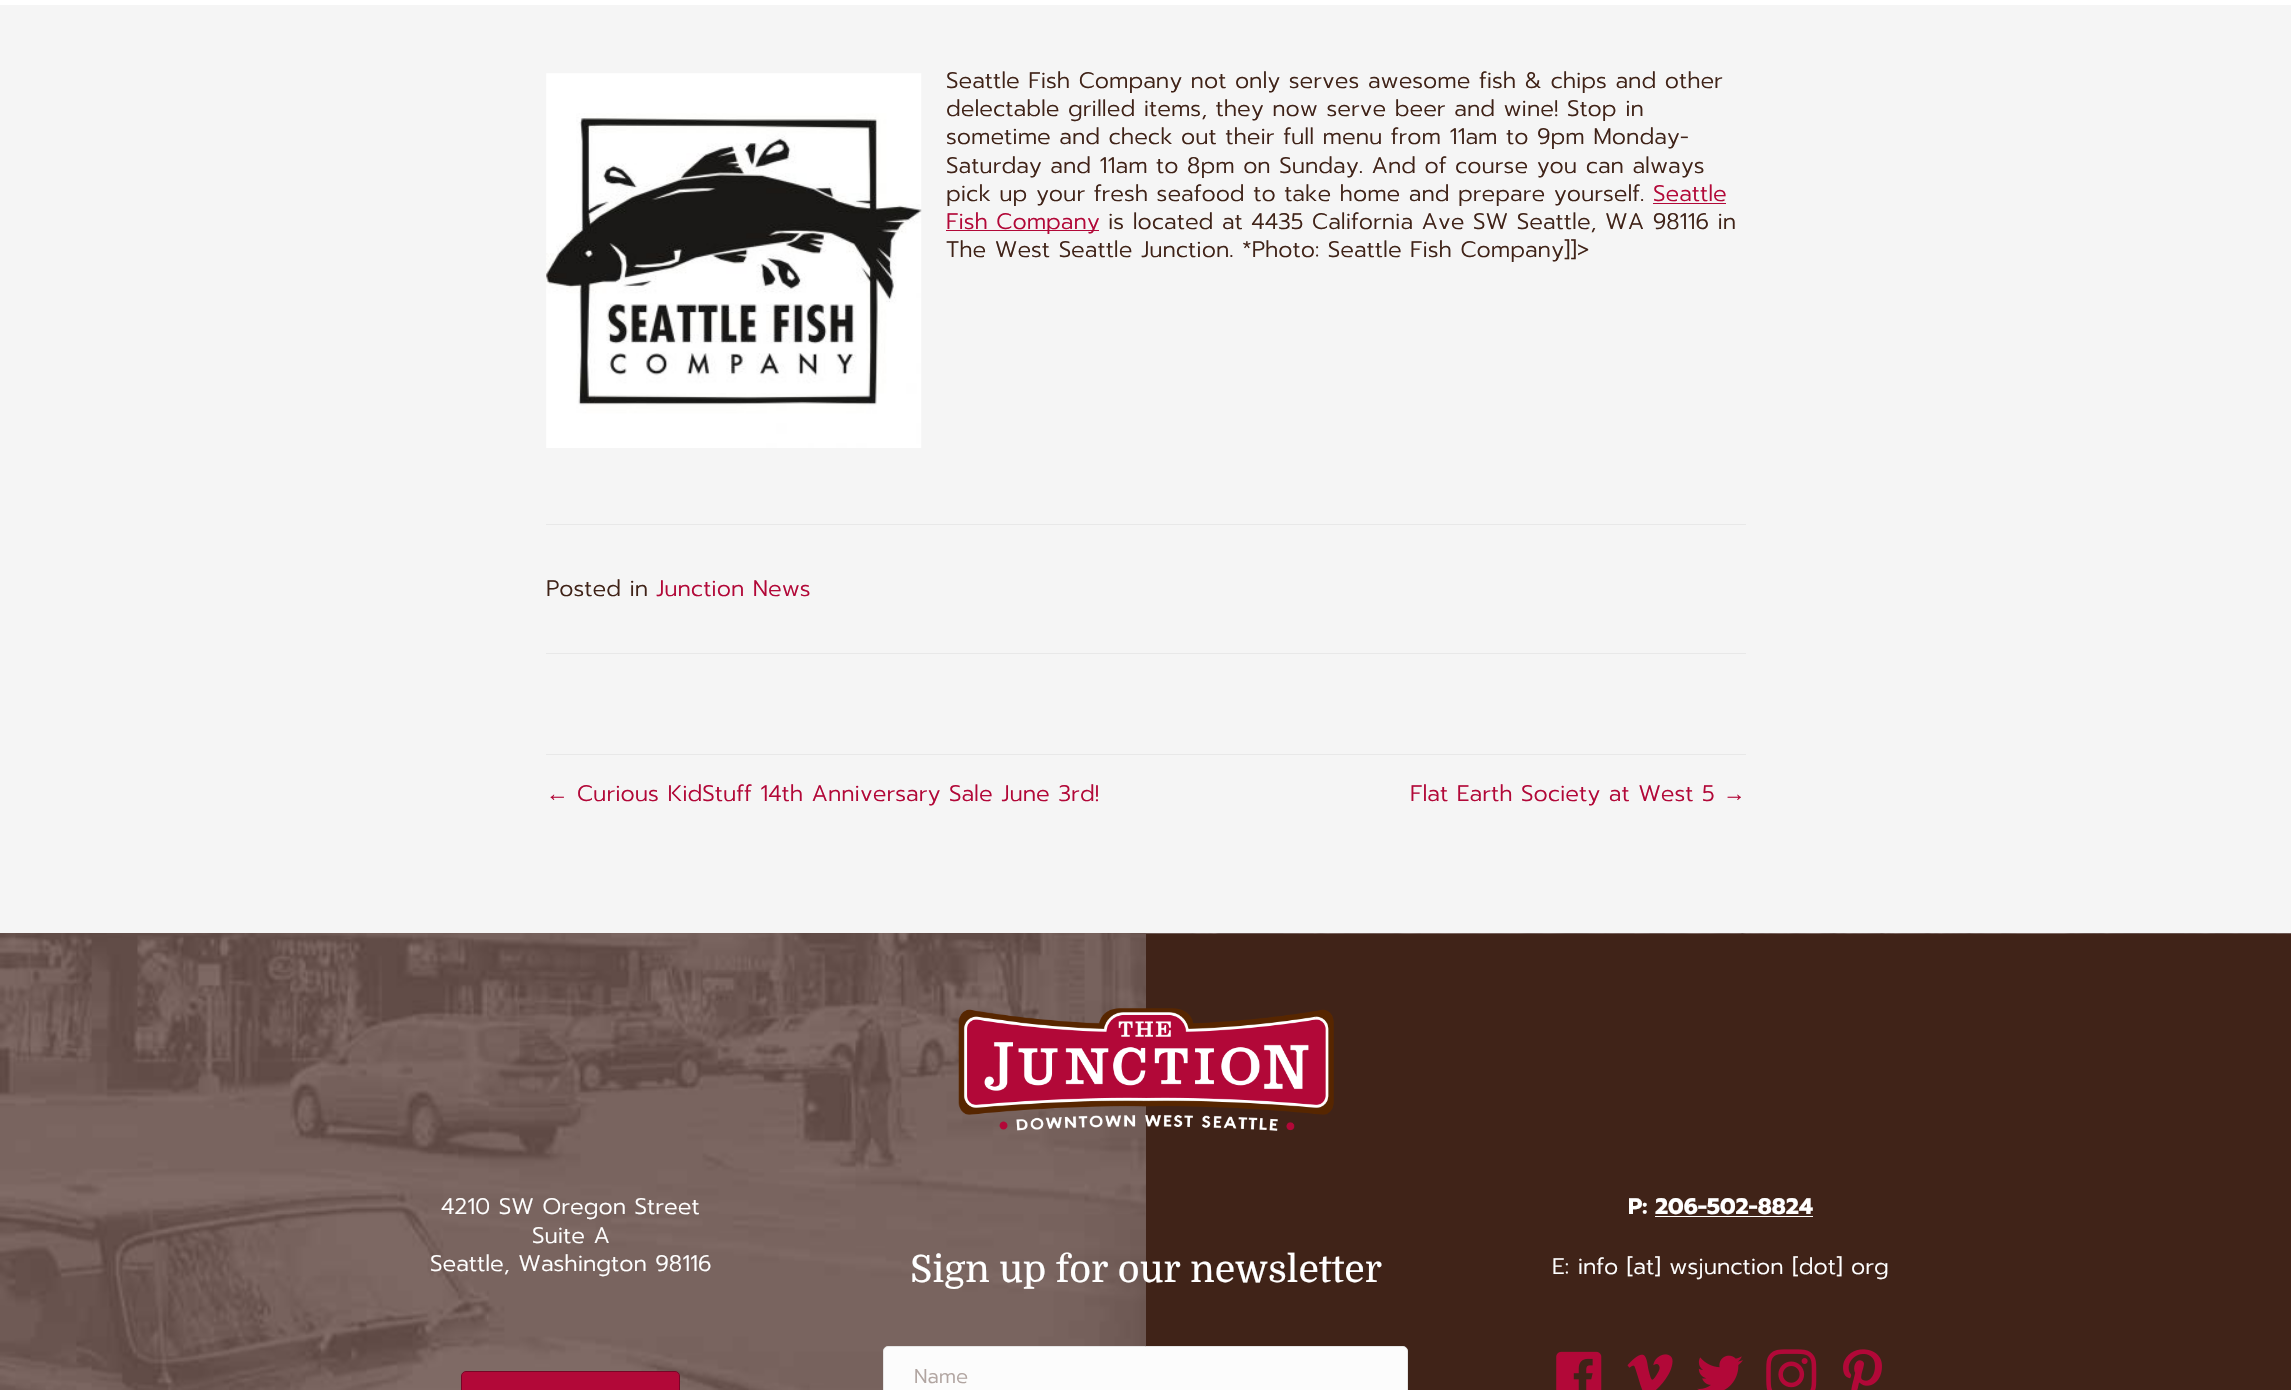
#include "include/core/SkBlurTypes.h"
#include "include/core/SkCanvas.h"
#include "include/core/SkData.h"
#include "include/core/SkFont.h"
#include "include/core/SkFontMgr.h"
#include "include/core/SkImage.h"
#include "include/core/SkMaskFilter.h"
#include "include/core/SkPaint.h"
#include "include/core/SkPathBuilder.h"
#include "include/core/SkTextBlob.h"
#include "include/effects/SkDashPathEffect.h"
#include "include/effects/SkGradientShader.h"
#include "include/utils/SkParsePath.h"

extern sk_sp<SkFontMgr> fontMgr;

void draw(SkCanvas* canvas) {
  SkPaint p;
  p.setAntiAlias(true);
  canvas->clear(SK_ColorWHITE);
  p.setColor(SkColorSetRGB(245, 245, 245));
  canvas->drawRect(SkRect::MakeLTRB(0, 5, 2291, 933), p);
  canvas->drawImageRect(SkImages::DeferredFromEncodedData(SkData::MakeFromFileName("images/1.png")), SkRect::MakeLTRB(546, 73, 922, 448), SkSamplingOptions());
  p.setColor(SkColorSetRGB(178, 8, 56));
  canvas->drawRect(SkRect::MakeLTRB(1653, 203, 1726, 204), p);
  canvas->drawRect(SkRect::MakeLTRB(946, 230, 1099, 231), p);
  p.setColor(SkColorSetRGB(232, 232, 232));
  canvas->drawRect(SkRect::MakeLTRB(546, 524, 1746, 525), p);
  canvas->drawRect(SkRect::MakeLTRB(546, 653, 1746, 654), p);
  canvas->drawRect(SkRect::MakeLTRB(546, 754, 1746, 755), p);
  canvas->drawImageRect(SkImages::DeferredFromEncodedData(SkData::MakeFromFileName("images/2.png")), SkRect::MakeLTRB(0, 933, 2291, 1390), SkSamplingOptions());
  p.setColor(SkColorSetRGB(64, 35, 24));
  canvas->drawRect(SkRect::MakeLTRB(1146, 934, 2291, 1390), p);
  canvas->drawImageRect(SkImages::DeferredFromEncodedData(SkData::MakeFromFileName("images/3.png")), SkRect::MakeLTRB(958, 1008, 1334, 1131), SkSamplingOptions());
  p.setColor(SkColorSetRGB(178, 8, 56));
  canvas->drawRoundRect(SkRect::MakeLTRB(461.5f, 1371.5f, 679.5f, 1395.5f), 4.5f, 4.5f, p);
  p.setStyle(SkPaint::kStroke_Style);
  p.setStrokeWidth(1);
  p.setColor(SkColorSetRGB(119, 5, 38));
  canvas->drawRoundRect(SkRect::MakeLTRB(461.5f, 1371.5f, 679.5f, 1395.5f), 4.5f, 4.5f, p);
  p.setStyle(SkPaint::kFill_Style);
  p.setColor(SK_ColorWHITE);
  canvas->drawRect(SkRect::MakeLTRB(1655, 1216, 1813, 1217), p);
  canvas->drawImageRect(SkImages::DeferredFromEncodedData(SkData::MakeFromFileName("images/4.png")), SkRect::MakeLTRB(1556, 1351, 1602, 1390), SkSamplingOptions());
  canvas->drawImageRect(SkImages::DeferredFromEncodedData(SkData::MakeFromFileName("images/5.png")), SkRect::MakeLTRB(1627, 1354, 1673, 1390), SkSamplingOptions());
  canvas->drawImageRect(SkImages::DeferredFromEncodedData(SkData::MakeFromFileName("images/6.png")), SkRect::MakeLTRB(1697, 1355, 1743, 1390), SkSamplingOptions());
  canvas->drawImageRect(SkImages::DeferredFromEncodedData(SkData::MakeFromFileName("images/7.png")), SkRect::MakeLTRB(1766, 1349, 1817, 1390), SkSamplingOptions());
  canvas->drawImageRect(SkImages::DeferredFromEncodedData(SkData::MakeFromFileName("images/8.png")), SkRect::MakeLTRB(1843, 1349, 1882, 1390), SkSamplingOptions());
  p.setColor(SkColorSetRGB(252, 252, 252));
  canvas->drawRoundRect(SkRect::MakeLTRB(883.5f, 1346.5f, 1407.5f, 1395.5f), 4.5f, 4.5f, p);
  p.setStyle(SkPaint::kStroke_Style);
  p.setColor(SkColorSetRGB(230, 230, 230));
  canvas->drawRoundRect(SkRect::MakeLTRB(883.5f, 1346.5f, 1407.5f, 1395.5f), 4.5f, 4.5f, p);
  SkFont font1(fontMgr->matchFamilyStyle("Prompt", SkFontStyle(300, SkFontStyle::kNormal_Width, SkFontStyle::kUpright_Slant)), 22.5f);
  font1.setSubpixel(true);
  p.setStyle(SkPaint::kFill_Style);
  p.setColor(SkColorSetRGB(64, 35, 24));
  canvas->drawString("Seattle Fish Company not only serves awesome fish & chips and other", 946, 88, font1, p);
  canvas->drawString("delectable grilled items, they now serve beer and wine! Stop in", 946, 116, font1, p);
  canvas->drawString("sometime and check out their full menu from 11am to 9pm Monday-", 946, 144, font1, p);
  canvas->drawString("Saturday and 11am to 8pm on Sunday. And of course you can always", 946, 173, font1, p);
  canvas->drawString("pick up your fresh seafood to take home and prepare yourself.", 946, 201, font1, p);
  p.setColor(SkColorSetRGB(178, 8, 56));
  canvas->drawString("Seattle", 1653, 201, font1, p);
  canvas->drawString("Fish Company", 946, 229, font1, p);
  p.setColor(SkColorSetRGB(64, 35, 24));
  canvas->drawString("is located at 4435 California Ave SW Seattle, WA 98116 in", 1108, 229, font1, p);
  canvas->drawString("The West Seattle Junction. *Photo: Seattle Fish Company]]>", 946, 257, font1, p);
  canvas->drawString("Posted in", 546, 596, font1, p);
  p.setColor(SkColorSetRGB(178, 8, 56));
  canvas->drawString("Junction News", 656, 596, font1, p);
  SkFont font2(fontMgr->matchFamilyStyle("Liberation Sans", SkFontStyle::Normal()), 22.5f);
  font2.setSubpixel(true);
  canvas->drawString("←", 546, 801, font2, p);
  canvas->drawString("Curious KidStuff 14th Anniversary Sale June 3rd!", 577, 801, font1, p);
  canvas->drawString("Flat Earth Society at West 5", 1410, 801, font1, p);
  canvas->drawString("→", 1723, 801, font2, p);
  p.setColor(SK_ColorWHITE);
  canvas->drawString("4210 SW Oregon Street", 441, 1214, font1, p);
  canvas->drawString("Suite A", 532, 1243, font1, p);
  canvas->drawString("Seattle, Washington 98116", 430, 1271, font1, p);
  SkFont font3(fontMgr->matchFamilyStyle("Prompt", SkFontStyle::Bold()), 22.5f);
  font3.setSubpixel(true);
  canvas->drawString("P: 206-502-8824", 1628, 1214, font3, p);
  canvas->drawString("E: info [at] wsjunction [dot] org", 1552, 1274, font1, p);
  SkFont font4(fontMgr->matchFamilyStyle("Domine", SkFontStyle::Normal()), 37.5f);
  font4.setSubpixel(true);
  canvas->drawString("Sign up for our newsletter", 910, 1282, font4, p);
  SkFont font5(fontMgr->matchFamilyStyle("Prompt", SkFontStyle(300, SkFontStyle::kNormal_Width, SkFontStyle::kUpright_Slant)), 20);
  font5.setSubpixel(true);
  p.setColor(SkColorSetRGB(177, 165, 161));
  canvas->drawString("Name", 914, 1383, font5, p);
}
